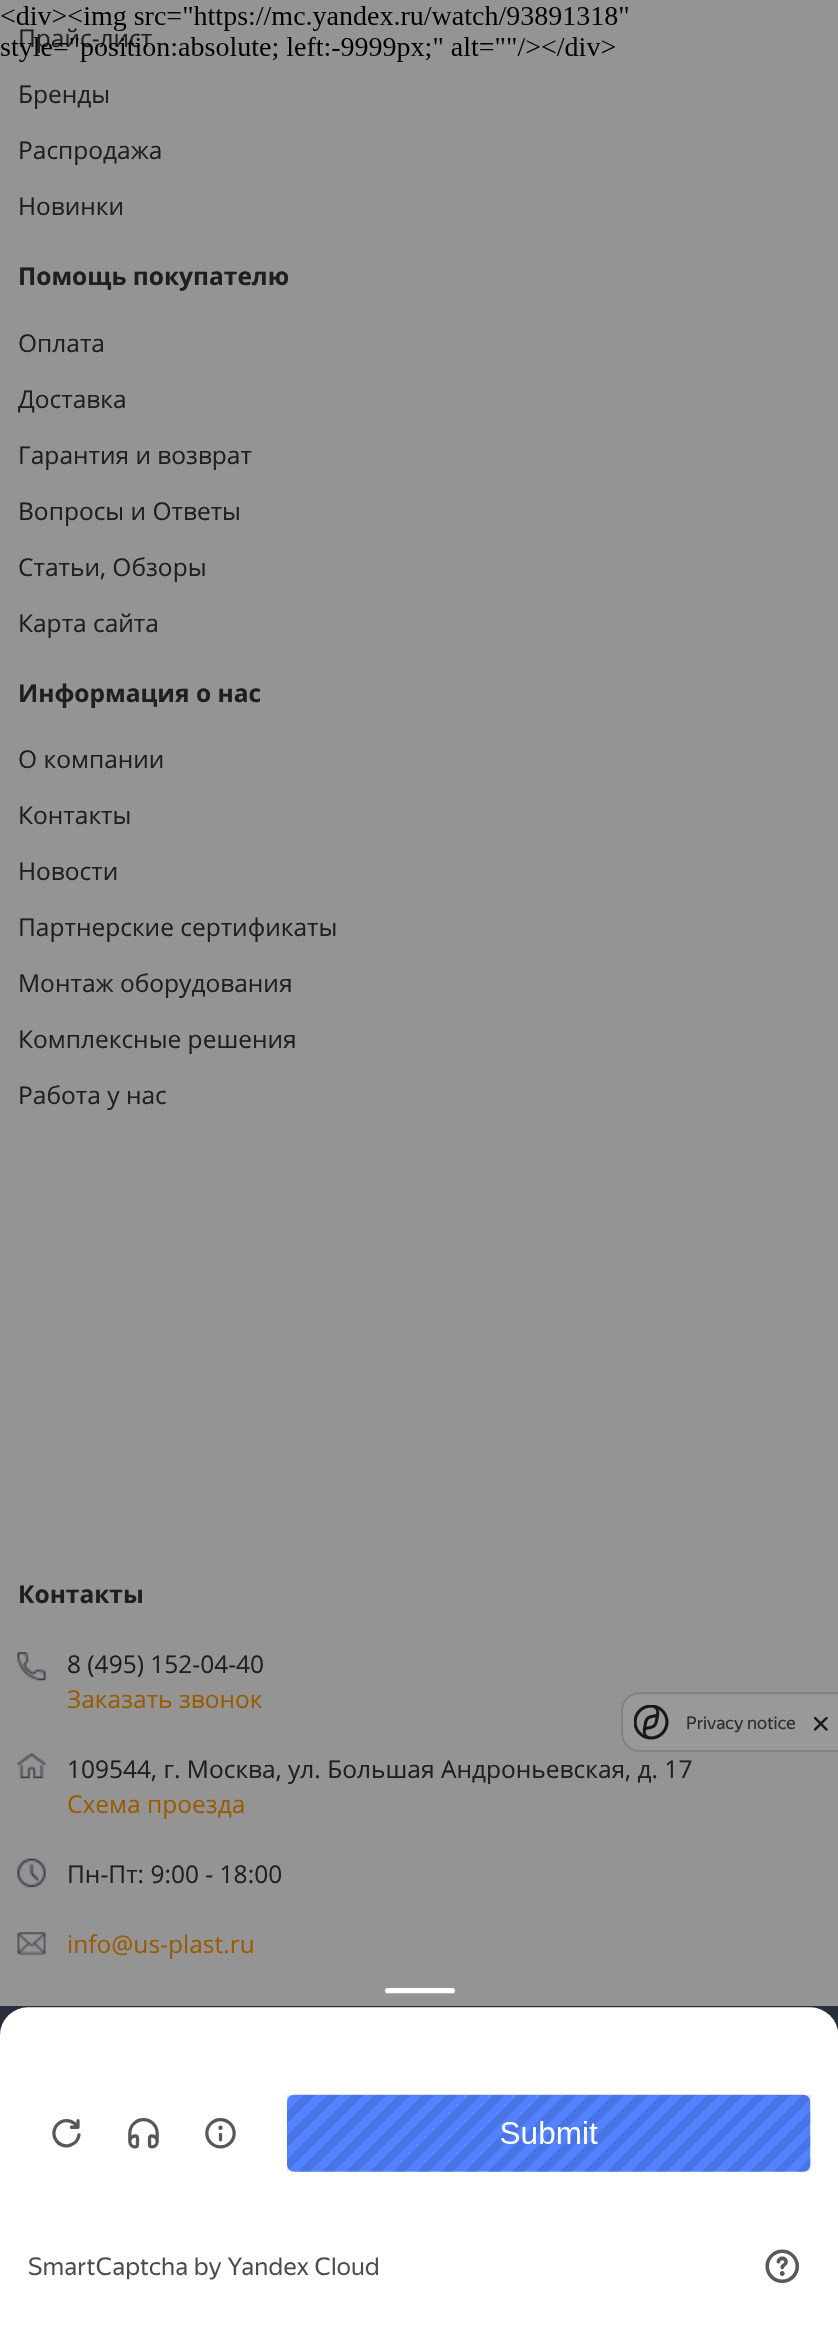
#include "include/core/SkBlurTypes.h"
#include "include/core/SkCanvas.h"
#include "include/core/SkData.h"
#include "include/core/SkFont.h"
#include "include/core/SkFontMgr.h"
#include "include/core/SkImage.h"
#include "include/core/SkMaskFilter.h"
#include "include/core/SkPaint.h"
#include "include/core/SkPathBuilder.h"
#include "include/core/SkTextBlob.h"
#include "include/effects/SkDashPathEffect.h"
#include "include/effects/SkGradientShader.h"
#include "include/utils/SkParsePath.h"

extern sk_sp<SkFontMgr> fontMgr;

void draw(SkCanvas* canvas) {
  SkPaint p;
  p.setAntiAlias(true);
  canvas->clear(SkColorSetRGB(148, 148, 148));
  canvas->drawImageRect(SkImages::DeferredFromEncodedData(SkData::MakeFromFileName("images/2.png")), SkRect::MakeLTRB(17, 1652, 47, 1681), SkSamplingOptions());
  canvas->drawImageRect(SkImages::DeferredFromEncodedData(SkData::MakeFromFileName("images/3.png")), SkRect::MakeLTRB(17, 1753, 46, 1779), SkSamplingOptions());
  canvas->drawImageRect(SkImages::DeferredFromEncodedData(SkData::MakeFromFileName("images/4.png")), SkRect::MakeLTRB(17, 1858, 46, 1889), SkSamplingOptions());
  canvas->drawImageRect(SkImages::DeferredFromEncodedData(SkData::MakeFromFileName("images/5.png")), SkRect::MakeLTRB(17, 1932, 46, 1955), SkSamplingOptions());
  p.setColor(SkColorSetRGB(40, 47, 58));
  canvas->drawRect(SkRect::MakeLTRB(0, 2006, 838, 2035), p);
  p.setColor(SkColorSetRGB(153, 153, 153));
  canvas->drawRoundRect(SkRect::MakeLTRB(622, 1693, 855, 1751), 18, 18, p);
  p.setStyle(SkPaint::kStroke_Style);
  p.setStrokeWidth(2);
  p.setColor(SkColorSetRGB(130, 130, 130));
  canvas->drawRoundRect(SkRect::MakeLTRB(622, 1693, 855, 1751), 18, 18, p);
  canvas->drawImageRect(SkImages::DeferredFromEncodedData(SkData::MakeFromFileName("images/6.png")), SkRect::MakeLTRB(634, 1705, 669, 1740), SkSamplingOptions());
  canvas->drawImageRect(SkImages::DeferredFromEncodedData(SkData::MakeFromFileName("images/7.png")), SkRect::MakeLTRB(814, 1717, 828, 1731), SkSamplingOptions());
  SkFont font1(fontMgr->matchFamilyStyle("Open Sans", SkFontStyle::Normal()), 24.5f);
  font1.setSubpixel(true);
  p.setStyle(SkPaint::kFill_Style);
  p.setColor(SkColorSetRGB(31, 31, 31));
  canvas->drawString("Прайс-лист", 18, 47, font1, p);
  canvas->drawString("Бренды", 18, 103, font1, p);
  canvas->drawString("Распродажа", 18, 159, font1, p);
  canvas->drawString("Новинки", 18, 215, font1, p);
  SkFont font2(fontMgr->matchFamilyStyle("Open Sans", SkFontStyle::Bold()), 24.5f);
  font2.setSubpixel(true);
  canvas->drawString("Помощь покупателю", 18, 285, font2, p);
  canvas->drawString("Оплата", 18, 352, font1, p);
  canvas->drawString("Доставка", 18, 408, font1, p);
  canvas->drawString("Гарантия и возврат", 18, 464, font1, p);
  canvas->drawString("Вопросы и Ответы", 18, 520, font1, p);
  canvas->drawString("Статьи, Обзоры", 18, 576, font1, p);
  canvas->drawString("Карта сайта", 18, 632, font1, p);
  canvas->drawString("Информация о нас", 18, 702, font2, p);
  canvas->drawString("О компании", 18, 768, font1, p);
  canvas->drawString("Контакты", 18, 824, font1, p);
  canvas->drawString("Новости", 18, 880, font1, p);
  canvas->drawString("Партнерские сертификаты", 18, 936, font1, p);
  canvas->drawString("Монтаж оборудования", 18, 992, font1, p);
  canvas->drawString("Комплексные решения", 18, 1048, font1, p);
  canvas->drawString("Работа у нас", 18, 1104, font1, p);
  canvas->drawString("Контакты", 18, 1603, font2, p);
  canvas->drawString("8 (495) 152-04-40", 67, 1673, font1, p);
  p.setColor(SkColorSetRGB(153, 91, 0));
  canvas->drawString("Заказать звонок", 67, 1708, font1, p);
  p.setColor(SkColorSetRGB(31, 31, 31));
  canvas->drawString("109544, г. Москва, ул. Большая Андроньевская, д. 17", 67, 1778, font1, p);
  p.setColor(SkColorSetRGB(153, 91, 0));
  canvas->drawString("Схема проезда", 67, 1813, font1, p);
  p.setColor(SkColorSetRGB(31, 31, 31));
  canvas->drawString("Пн-Пт: 9:00 - 18:00", 67, 1883, font1, p);
  p.setColor(SkColorSetRGB(153, 91, 0));
  canvas->drawString("info@us-plast.ru", 67, 1953, font1, p);
  SkFont font3(fontMgr->matchFamilyStyle("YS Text", SkFontStyle::Normal()), 17.5f);
  font3.setSubpixel(true);
  p.setColor(SkColorSetRGB(46, 46, 46));
  canvas->drawString("Privacy notice", 686, 1729, font3, p);
  canvas->drawImageRect(SkImages::DeferredFromEncodedData(SkData::MakeFromFileName("images/1.png")), SkRect::MakeLTRB(0, 6, 838, 2335), SkSamplingOptions());
}
